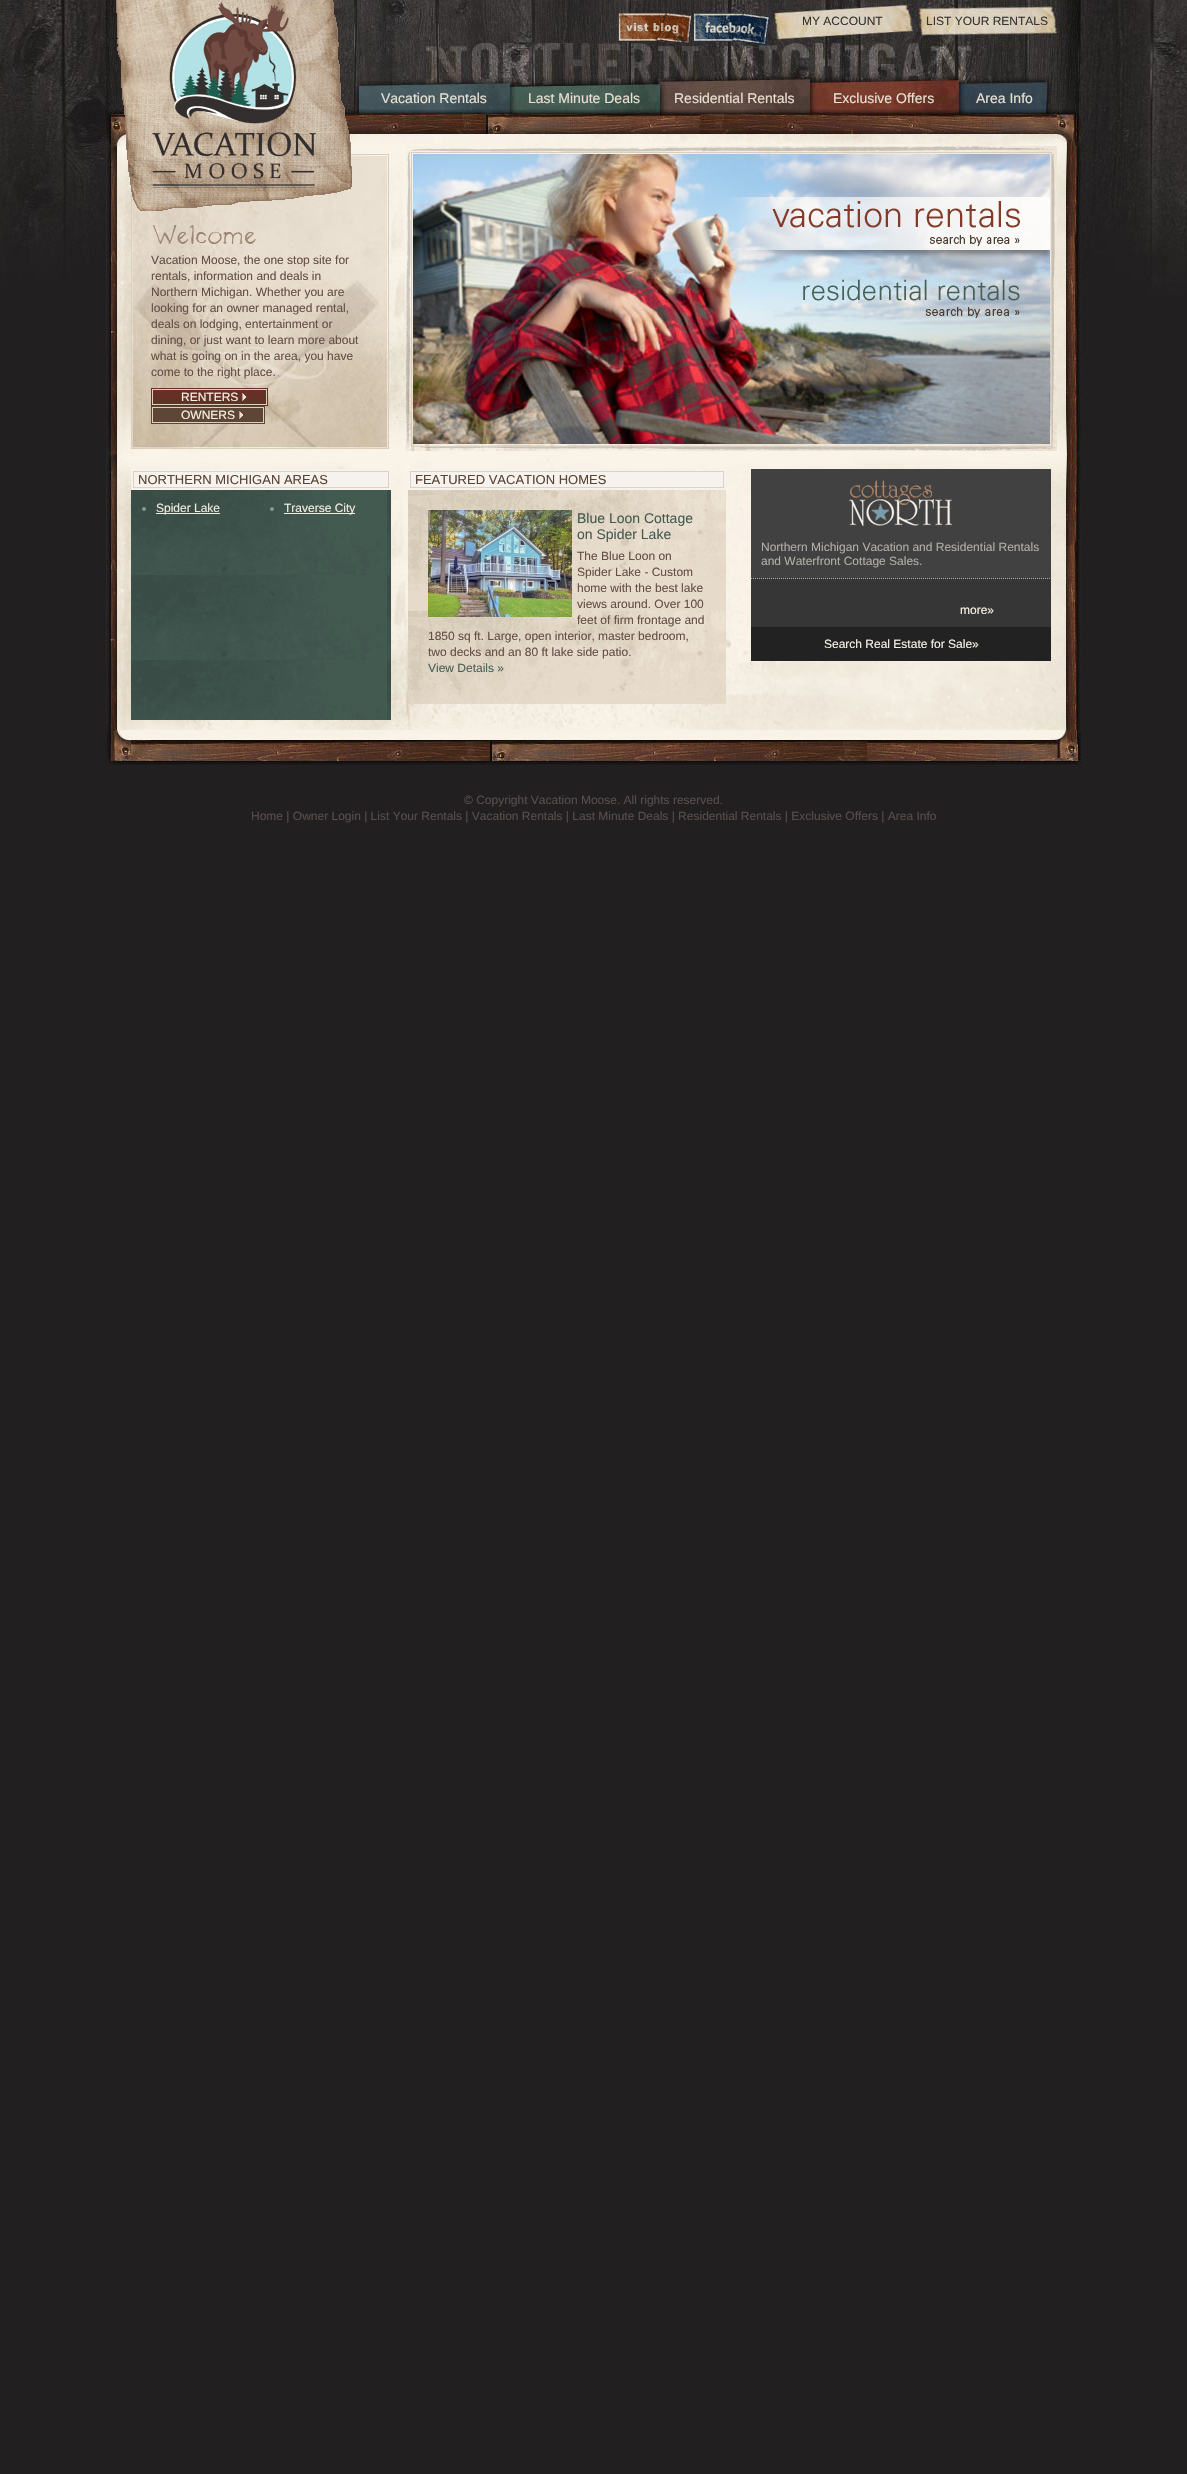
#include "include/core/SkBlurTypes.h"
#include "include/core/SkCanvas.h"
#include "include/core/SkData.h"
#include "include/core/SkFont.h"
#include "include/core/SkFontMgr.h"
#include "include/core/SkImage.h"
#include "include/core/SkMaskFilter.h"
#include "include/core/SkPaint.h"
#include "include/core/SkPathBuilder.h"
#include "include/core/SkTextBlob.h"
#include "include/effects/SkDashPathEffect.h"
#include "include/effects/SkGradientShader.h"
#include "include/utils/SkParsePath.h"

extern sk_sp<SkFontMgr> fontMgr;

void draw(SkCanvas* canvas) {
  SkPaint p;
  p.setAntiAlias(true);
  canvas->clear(SkColorSetRGB(33, 31, 31));
  canvas->drawImageRect(SkImages::DeferredFromEncodedData(SkData::MakeFromFileName("images/1.png")), SkRect::MakeLTRB(0, 0, 1187, 296), SkSamplingOptions());
  canvas->drawImageRect(SkImages::DeferredFromEncodedData(SkData::MakeFromFileName("images/2.png")), SkRect::MakeLTRB(106, 0, 1081, 146), SkSamplingOptions());
  canvas->drawImageRect(SkImages::DeferredFromEncodedData(SkData::MakeFromFileName("images/6.png")), SkRect::MakeLTRB(106, 146, 1081, 730), SkSamplingOptions());
  canvas->drawImageRect(SkImages::DeferredFromEncodedData(SkData::MakeFromFileName("images/7.png")), SkRect::MakeLTRB(131, 154, 389, 449), SkSamplingOptions());
  canvas->drawImageRect(SkImages::DeferredFromEncodedData(SkData::MakeFromFileName("images/3.png")), SkRect::MakeLTRB(116, 0, 352, 211), SkSamplingOptions());
  canvas->drawImageRect(SkImages::DeferredFromEncodedData(SkData::MakeFromFileName("images/4.png")), SkRect::MakeLTRB(618, 13, 692, 43), SkSamplingOptions());
  canvas->drawImageRect(SkImages::DeferredFromEncodedData(SkData::MakeFromFileName("images/5.png")), SkRect::MakeLTRB(693, 13, 770, 45), SkSamplingOptions());
  canvas->drawImageRect(SkImages::DeferredFromEncodedData(SkData::MakeFromFileName("images/8.png")), SkRect::MakeLTRB(153, 225, 256, 244), SkSamplingOptions());
  p.setColor(SkColorSetRGB(101, 49, 38));
  canvas->drawRect(SkRect::MakeLTRB(151, 388, 268, 406), p);
  canvas->drawImageRect(SkImages::DeferredFromEncodedData(SkData::MakeFromFileName("images/9.png")), SkRect::MakeLTRB(242, 393, 247, 401), SkSamplingOptions());
  p.setStyle(SkPaint::kStroke_Style);
  p.setStrokeWidth(1);
  p.setColor(SkColorSetRGB(221, 209, 193));
  canvas->drawRect(SkRect::MakeLTRB(152.5f, 389.5f, 266.5f, 404.5f), p);
  p.setStyle(SkPaint::kFill_Style);
  p.setColor(SkColorSetRGB(93, 70, 53));
  canvas->drawRect(SkRect::MakeLTRB(151, 406, 265, 424), p);
  canvas->drawImageRect(SkImages::DeferredFromEncodedData(SkData::MakeFromFileName("images/10.png")), SkRect::MakeLTRB(239, 411, 244, 419), SkSamplingOptions());
  p.setStyle(SkPaint::kStroke_Style);
  p.setColor(SkColorSetRGB(221, 209, 193));
  canvas->drawRect(SkRect::MakeLTRB(152.5f, 407.5f, 263.5f, 422.5f), p);
  canvas->drawImageRect(SkImages::DeferredFromEncodedData(SkData::MakeFromFileName("images/11.png")), SkRect::MakeLTRB(406, 146, 1057, 451), SkSamplingOptions());
  p.setStyle(SkPaint::kFill_Style);
  p.setColor(SkColorSetRGB(246, 242, 237));
  canvas->drawRect(SkRect::MakeLTRB(131, 469, 391, 490), p);
  p.setStyle(SkPaint::kStroke_Style);
  p.setColor(SkColorSetRGB(221, 209, 193));
  canvas->drawRect(SkRect::MakeLTRB(133.5f, 471.5f, 388.5f, 487.5f), p);
  canvas->drawImageRect(SkImages::DeferredFromEncodedData(SkData::MakeFromFileName("images/12.png")), SkRect::MakeLTRB(131, 490, 391, 720), SkSamplingOptions());
  p.setStyle(SkPaint::kFill_Style);
  p.setColor(SkColorSetRGB(132, 152, 144));
  canvas->drawCircle(144, 509, 2, p);
  p.setColor(SkColorSetRGB(242, 235, 223));
  canvas->drawRect(SkRect::MakeLTRB(156, 513, 220, 514), p);
  p.setColor(SkColorSetRGB(132, 152, 144));
  canvas->drawCircle(272, 509, 2, p);
  p.setColor(SkColorSetRGB(242, 235, 223));
  canvas->drawRect(SkRect::MakeLTRB(284, 513, 355, 514), p);
  p.setColor(SkColorSetRGB(246, 242, 237));
  canvas->drawRect(SkRect::MakeLTRB(408, 469, 726, 490), p);
  p.setStyle(SkPaint::kStroke_Style);
  p.setColor(SkColorSetRGB(221, 209, 193));
  canvas->drawRect(SkRect::MakeLTRB(410.5f, 471.5f, 723.5f, 487.5f), p);
  canvas->drawImageRect(SkImages::DeferredFromEncodedData(SkData::MakeFromFileName("images/13.png")), SkRect::MakeLTRB(408, 490, 726, 704), SkSamplingOptions());
  canvas->drawImageRect(SkImages::DeferredFromEncodedData(SkData::MakeFromFileName("images/14.png")), SkRect::MakeLTRB(428, 510, 572, 617), SkSamplingOptions());
  p.setStyle(SkPaint::kFill_Style);
  p.setColor(SkColorSetRGB(65, 65, 65));
  canvas->drawRect(SkRect::MakeLTRB(751, 469, 1051, 578), p);
  canvas->drawImageRect(SkImages::DeferredFromEncodedData(SkData::MakeFromFileName("images/15.png")), SkRect::MakeLTRB(849, 480, 952, 526), SkSamplingOptions());
  p.setColor(SkColorSetRGB(54, 54, 54));
  canvas->drawRect(SkRect::MakeLTRB(751, 578, 1051, 627), p);
  p.setStyle(SkPaint::kStroke_Style);
  p.setColor(SkColorSetRGB(177, 174, 167));
  p.setPathEffect(SkDashPathEffect::Make({{1, 1}}, 0));
  canvas->drawPath(SkPathBuilder().moveTo(751, 578.5f).lineTo(1051, 578.5f).detach(), p);
  p.setPathEffect(nullptr);
  p.setStyle(SkPaint::kFill_Style);
  p.setColor(SkColorSetRGB(34, 34, 34));
  canvas->drawRect(SkRect::MakeLTRB(751, 627, 1051, 661), p);
  canvas->drawImageRect(SkImages::DeferredFromEncodedData(SkData::MakeFromFileName("images/16.png")), SkRect::MakeLTRB(106, 730, 1081, 765), SkSamplingOptions());
  SkFont font1(fontMgr->matchFamilyStyle("Liberation Sans", SkFontStyle::Normal()), 12);
  font1.setSubpixel(true);
  p.setColor(SkColorSetRGB(54, 51, 50));
  canvas->drawString("MY ACCOUNT", 802, 25, font1, p);
  canvas->drawString("LIST YOUR RENTALS", 926, 25, font1, p);
  SkFont font2(fontMgr->matchFamilyStyle("Liberation Sans", SkFontStyle::Normal()), 14);
  font2.setSubpixel(true);
  p.setColor(SkColorSetRGB(233, 224, 209));
  canvas->drawString("Vacation Rentals", 381, 103, font2, p);
  canvas->drawString("Last Minute Deals", 528, 103, font2, p);
  canvas->drawString("Residential Rentals", 674, 103, font2, p);
  canvas->drawString("Exclusive Offers", 833, 103, font2, p);
  canvas->drawString("Area Info", 976, 103, font2, p);
  p.setColor(SkColorSetRGB(100, 78, 70));
  canvas->drawString("Vacation Moose, the one stop site for", 151, 264, font1, p);
  canvas->drawString("rentals, information and deals in", 151, 280, font1, p);
  canvas->drawString("Northern Michigan. Whether you are", 151, 296, font1, p);
  canvas->drawString("looking for an owner managed rental,", 151, 312, font1, p);
  canvas->drawString("deals on lodging, entertainment or", 151, 328, font1, p);
  canvas->drawString("dining, or just want to learn more about", 151, 344, font1, p);
  canvas->drawString("what is going on in the area, you have", 151, 360, font1, p);
  canvas->drawString("come to the right place.", 151, 376, font1, p);
  p.setColor(SkColorSetRGB(248, 242, 231));
  canvas->drawString("RENTERS", 181, 401, font1, p);
  canvas->drawString("OWNERS", 181, 419, font1, p);
  SkFont font3(fontMgr->matchFamilyStyle("Liberation Sans", SkFontStyle::Normal()), 13);
  font3.setSubpixel(true);
  p.setColor(SkColorSetRGB(89, 67, 51));
  canvas->drawString("NORTHERN MICHIGAN AREAS", 138, 484, font3, p);
  p.setColor(SkColorSetRGB(242, 235, 223));
  canvas->drawString("Spider Lake", 156, 512, font1, p);
  canvas->drawString("Traverse City", 284, 512, font1, p);
  p.setColor(SkColorSetRGB(89, 67, 51));
  canvas->drawString("FEATURED VACATION HOMES", 415, 484, font3, p);
  p.setColor(SkColorSetRGB(68, 91, 82));
  canvas->drawString("Blue Loon Cottage", 577, 523, font2, p);
  canvas->drawString("on Spider Lake", 577, 539, font2, p);
  p.setColor(SkColorSetRGB(100, 78, 70));
  canvas->drawString("The Blue Loon on", 577, 560, font1, p);
  canvas->drawString("Spider Lake - Custom", 577, 576, font1, p);
  canvas->drawString("home with the best lake", 577, 592, font1, p);
  canvas->drawString("views around. Over 100", 577, 608, font1, p);
  canvas->drawString("feet of firm frontage and", 577, 624, font1, p);
  canvas->drawString("1850 sq ft. Large, open interior, master bedroom,", 428, 640, font1, p);
  canvas->drawString("two decks and an 80 ft lake side patio.", 428, 656, font1, p);
  p.setColor(SkColorSetRGB(72, 96, 88));
  canvas->drawString("View Details »", 428, 672, font1, p);
  p.setColor(SkColorSetRGB(177, 174, 167));
  canvas->drawString("Northern Michigan Vacation and Residential Rentals", 761, 551, font1, p);
  canvas->drawString("and Waterfront Cottage Sales.", 761, 565, font1, p);
  p.setColor(SkColorSetRGB(248, 242, 231));
  canvas->drawString("more»", 960, 614, font1, p);
  canvas->drawString("Search Real Estate for Sale»", 824, 648, font1, p);
  p.setColor(SkColorSetRGB(86, 78, 76));
  canvas->drawString("© Copyright Vacation Moose. All rights reserved.", 464, 804, font1, p);
  canvas->drawString("Home | Owner Login | List Your Rentals | Vacation Rentals | Last Minute Deals | Residential Rentals | Exclusive Offers | Area Info", 251, 820, font1, p);
}
